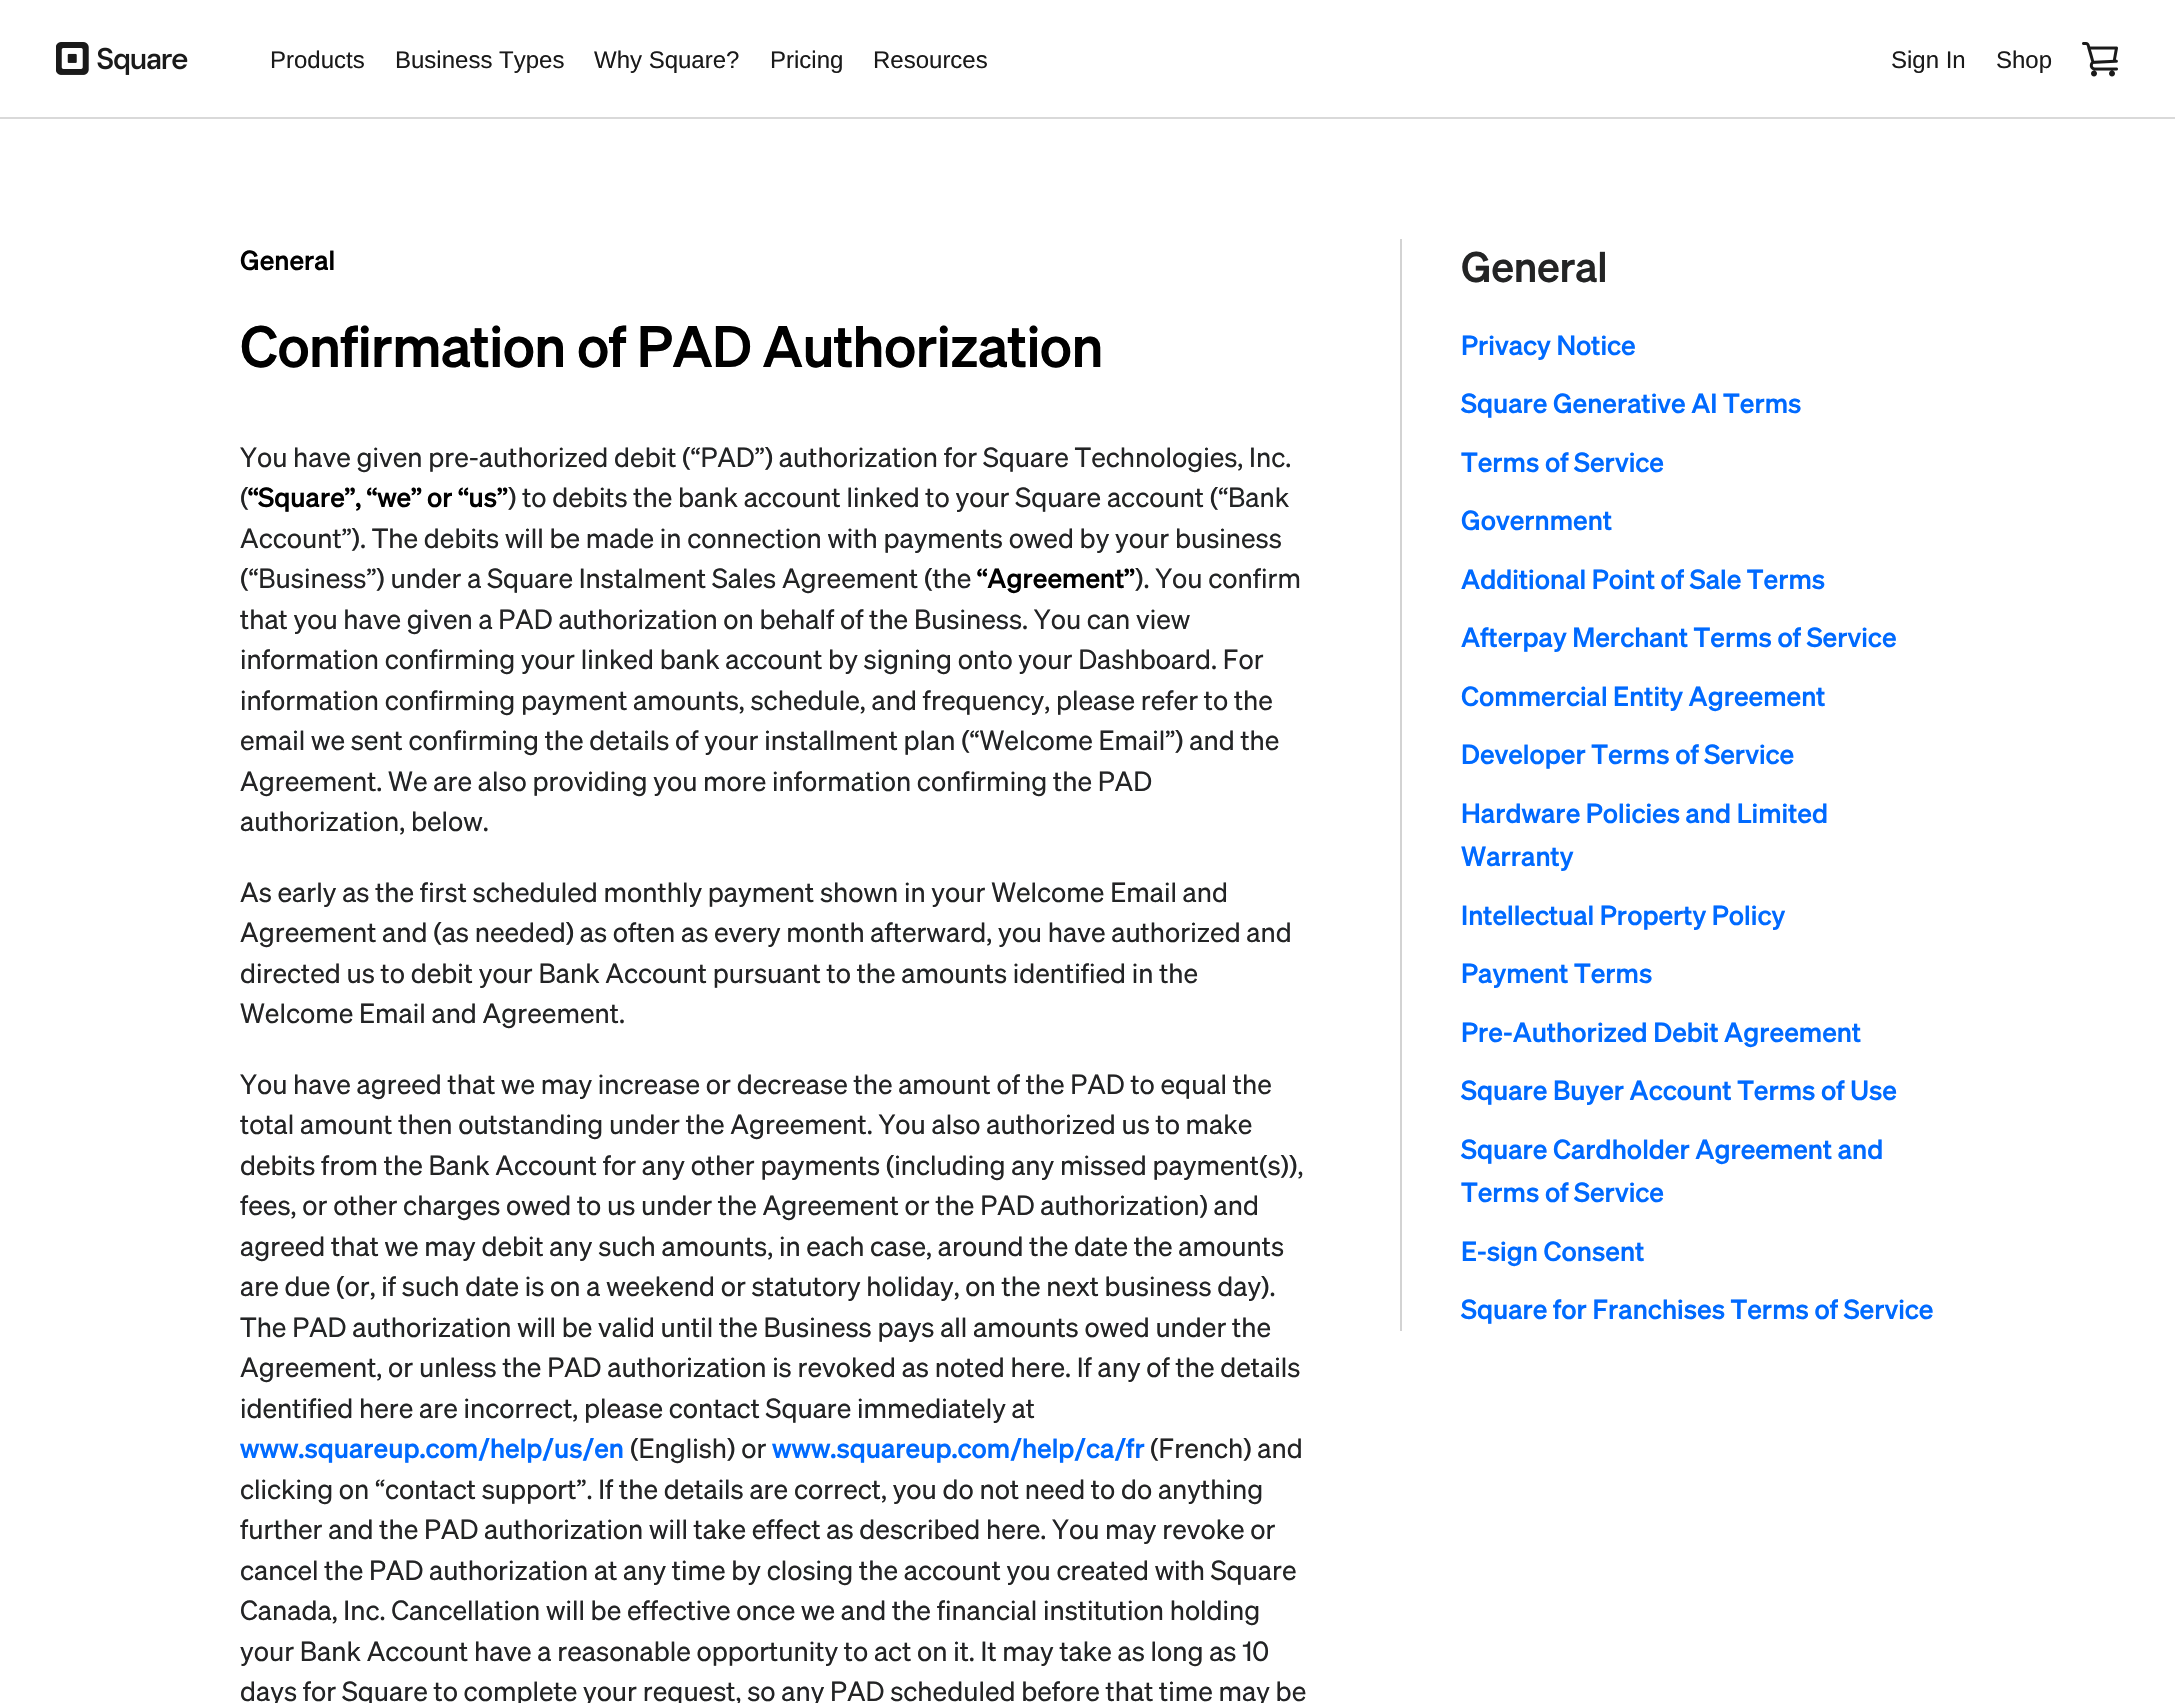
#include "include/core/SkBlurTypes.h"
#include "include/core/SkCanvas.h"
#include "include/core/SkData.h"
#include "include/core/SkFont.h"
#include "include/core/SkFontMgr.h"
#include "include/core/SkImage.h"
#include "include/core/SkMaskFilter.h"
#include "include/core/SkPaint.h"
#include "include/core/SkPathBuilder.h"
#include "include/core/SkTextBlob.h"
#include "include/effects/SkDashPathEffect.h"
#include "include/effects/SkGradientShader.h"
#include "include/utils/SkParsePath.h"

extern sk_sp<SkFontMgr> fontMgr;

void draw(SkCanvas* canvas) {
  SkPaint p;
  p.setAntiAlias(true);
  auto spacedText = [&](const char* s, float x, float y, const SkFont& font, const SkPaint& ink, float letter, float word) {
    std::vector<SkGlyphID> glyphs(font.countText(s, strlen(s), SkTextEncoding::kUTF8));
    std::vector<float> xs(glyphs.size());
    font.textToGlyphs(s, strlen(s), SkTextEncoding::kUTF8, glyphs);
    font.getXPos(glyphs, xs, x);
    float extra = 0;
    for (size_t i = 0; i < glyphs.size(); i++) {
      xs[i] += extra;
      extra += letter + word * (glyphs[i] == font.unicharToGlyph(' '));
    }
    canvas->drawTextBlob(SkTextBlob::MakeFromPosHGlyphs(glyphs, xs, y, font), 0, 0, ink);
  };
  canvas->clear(SK_ColorWHITE);
  p.setColor(SkColorSetRGB(217, 217, 217));
  canvas->drawRect(SkRect::MakeLTRB(0, 117, 2175, 119), p);
  canvas->drawImageRect(SkImages::DeferredFromEncodedData(SkData::MakeFromFileName("images/1.png")), SkRect::MakeLTRB(56, 42, 188, 75), SkSamplingOptions());
  canvas->drawImageRect(SkImages::DeferredFromEncodedData(SkData::MakeFromFileName("images/2.png")), SkRect::MakeLTRB(2082, 42, 2118, 77), SkSamplingOptions());
  p.setColor(SkColorSetRGB(211, 211, 211));
  canvas->drawRect(SkRect::MakeLTRB(1400, 239, 1402, 1331), p);
  SkFont font1(fontMgr->matchFamilyStyle("Liberation Sans", SkFontStyle::Normal()), 24);
  font1.setSubpixel(true);
  p.setColor(SkColorSetRGB(26, 26, 26));
  canvas->drawString("Products", 270, 68, font1, p);
  canvas->drawString("Business Types", 395, 68, font1, p);
  canvas->drawString("Why Square?", 594, 68, font1, p);
  canvas->drawString("Pricing", 770, 68, font1, p);
  canvas->drawString("Resources", 873, 68, font1, p);
  canvas->drawString("Sign In", 1891, 68, font1, p);
  canvas->drawString("Shop", 1996, 68, font1, p);
  SkFont font2(fontMgr->matchFamilyStyle("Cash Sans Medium", SkFontStyle(500, SkFontStyle::kNormal_Width, SkFontStyle::kUpright_Slant)), 27);
  font2.setSubpixel(true);
  p.setColor(SK_ColorBLACK);
  canvas->drawString("General", 240, 270, font2, p);
  SkFont font3(fontMgr->matchFamilyStyle("Cash Sans Medium", SkFontStyle(500, SkFontStyle::kNormal_Width, SkFontStyle::kUpright_Slant)), 57);
  font3.setSubpixel(true);
  spacedText("Confirmation of PAD Authorization", 240, 367, font3, p, -0.6f, 0);
  SkFont font4(fontMgr->matchFamilyStyle("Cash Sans", SkFontStyle::Normal()), 27);
  font4.setSubpixel(true);
  p.setColor(SkColorSetRGB(35, 36, 37));
  canvas->drawString("You have given pre-authorized debit (“PAD”) authorization for Square Technologies, Inc.", 240, 467, font4, p);
  canvas->drawString("(", 240, 507, font4, p);
  p.setColor(SK_ColorBLACK);
  canvas->drawString("“Square”, “we” or “us”", 248, 507, font2, p);
  p.setColor(SkColorSetRGB(35, 36, 37));
  canvas->drawString(") to debits the bank account linked to your Square account (“Bank", 508, 507, font4, p);
  canvas->drawString("Account”). The debits will be made in connection with payments owed by your business", 240, 548, font4, p);
  canvas->drawString("(“Business”) under a Square Instalment Sales Agreement (the", 240, 588, font4, p);
  p.setColor(SK_ColorBLACK);
  canvas->drawString("“Agreement”", 977, 588, font2, p);
  p.setColor(SkColorSetRGB(35, 36, 37));
  canvas->drawString("). You confirm", 1135, 588, font4, p);
  canvas->drawString("that you have given a PAD authorization on behalf of the Business. You can view", 240, 629, font4, p);
  canvas->drawString("information confirming your linked bank account by signing onto your Dashboard. For", 240, 669, font4, p);
  canvas->drawString("information confirming payment amounts, schedule, and frequency, please refer to the", 240, 710, font4, p);
  canvas->drawString("email we sent confirming the details of your installment plan (“Welcome Email”) and the", 240, 750, font4, p);
  canvas->drawString("Agreement. We are also providing you more information confirming the PAD", 240, 791, font4, p);
  canvas->drawString("authorization, below.", 240, 831, font4, p);
  canvas->drawString("As early as the first scheduled monthly payment shown in your Welcome Email and", 240, 902, font4, p);
  canvas->drawString("Agreement and (as needed) as often as every month afterward, you have authorized and", 240, 942, font4, p);
  canvas->drawString("directed us to debit your Bank Account pursuant to the amounts identified in the", 240, 983, font4, p);
  canvas->drawString("Welcome Email and Agreement.", 240, 1023, font4, p);
  canvas->drawString("You have agreed that we may increase or decrease the amount of the PAD to equal the", 240, 1094, font4, p);
  canvas->drawString("total amount then outstanding under the Agreement. You also authorized us to make", 240, 1134, font4, p);
  canvas->drawString("debits from the Bank Account for any other payments (including any missed payment(s)),", 240, 1175, font4, p);
  canvas->drawString("fees, or other charges owed to us under the Agreement or the PAD authorization) and", 240, 1215, font4, p);
  canvas->drawString("agreed that we may debit any such amounts, in each case, around the date the amounts", 240, 1256, font4, p);
  canvas->drawString("are due (or, if such date is on a weekend or statutory holiday, on the next business day).", 240, 1296, font4, p);
  canvas->drawString("The PAD authorization will be valid until the Business pays all amounts owed under the", 240, 1337, font4, p);
  canvas->drawString("Agreement, or unless the PAD authorization is revoked as noted here. If any of the details", 240, 1377, font4, p);
  canvas->drawString("identified here are incorrect, please contact Square immediately at", 240, 1418, font4, p);
  p.setColor(SkColorSetRGB(0, 106, 255));
  canvas->drawString("www.squareup.com/help/us/en", 240, 1458, font2, p);
  p.setColor(SkColorSetRGB(35, 36, 37));
  canvas->drawString("(English) or", 630, 1458, font4, p);
  p.setColor(SkColorSetRGB(0, 106, 255));
  canvas->drawString("www.squareup.com/help/ca/fr", 772, 1458, font2, p);
  p.setColor(SkColorSetRGB(35, 36, 37));
  canvas->drawString("(French) and", 1150, 1458, font4, p);
  canvas->drawString("clicking on “contact support”. If the details are correct, you do not need to do anything", 240, 1499, font4, p);
  canvas->drawString("further and the PAD authorization will take effect as described here. You may revoke or", 240, 1539, font4, p);
  canvas->drawString("cancel the PAD authorization at any time by closing the account you created with Square", 240, 1580, font4, p);
  canvas->drawString("Canada, Inc. Cancellation will be effective once we and the financial institution holding", 240, 1620, font4, p);
  canvas->drawString("your Bank Account have a reasonable opportunity to act on it. It may take as long as 10", 240, 1661, font4, p);
  canvas->drawString("days for Square to complete your request, so any PAD scheduled before that time may be", 240, 1701, font4, p);
  SkFont font5(fontMgr->matchFamilyStyle("Cash Sans Medium", SkFontStyle(500, SkFontStyle::kNormal_Width, SkFontStyle::kUpright_Slant)), 42);
  font5.setSubpixel(true);
  spacedText("General", 1461, 282, font5, p, -0.25f, 0);
  p.setColor(SkColorSetRGB(0, 106, 255));
  canvas->drawString("Privacy Notice", 1461, 355, font2, p);
  canvas->drawString("Square Generative AI Terms", 1461, 413, font2, p);
  canvas->drawString("Terms of Service", 1461, 472, font2, p);
  canvas->drawString("Government", 1461, 530, font2, p);
  canvas->drawString("Additional Point of Sale Terms", 1461, 589, font2, p);
  canvas->drawString("Afterpay Merchant Terms of Service", 1461, 647, font2, p);
  canvas->drawString("Commercial Entity Agreement", 1461, 706, font2, p);
  canvas->drawString("Developer Terms of Service", 1461, 764, font2, p);
  canvas->drawString("Hardware Policies and Limited", 1461, 823, font2, p);
  canvas->drawString("Warranty", 1461, 866, font2, p);
  canvas->drawString("Intellectual Property Policy", 1461, 925, font2, p);
  canvas->drawString("Payment Terms", 1461, 983, font2, p);
  canvas->drawString("Pre-Authorized Debit Agreement", 1461, 1042, font2, p);
  canvas->drawString("Square Buyer Account Terms of Use", 1461, 1100, font2, p);
  canvas->drawString("Square Cardholder Agreement and", 1461, 1159, font2, p);
  canvas->drawString("Terms of Service", 1461, 1202, font2, p);
  canvas->drawString("E-sign Consent", 1461, 1261, font2, p);
  canvas->drawString("Square for Franchises Terms of Service", 1461, 1319, font2, p);
}
